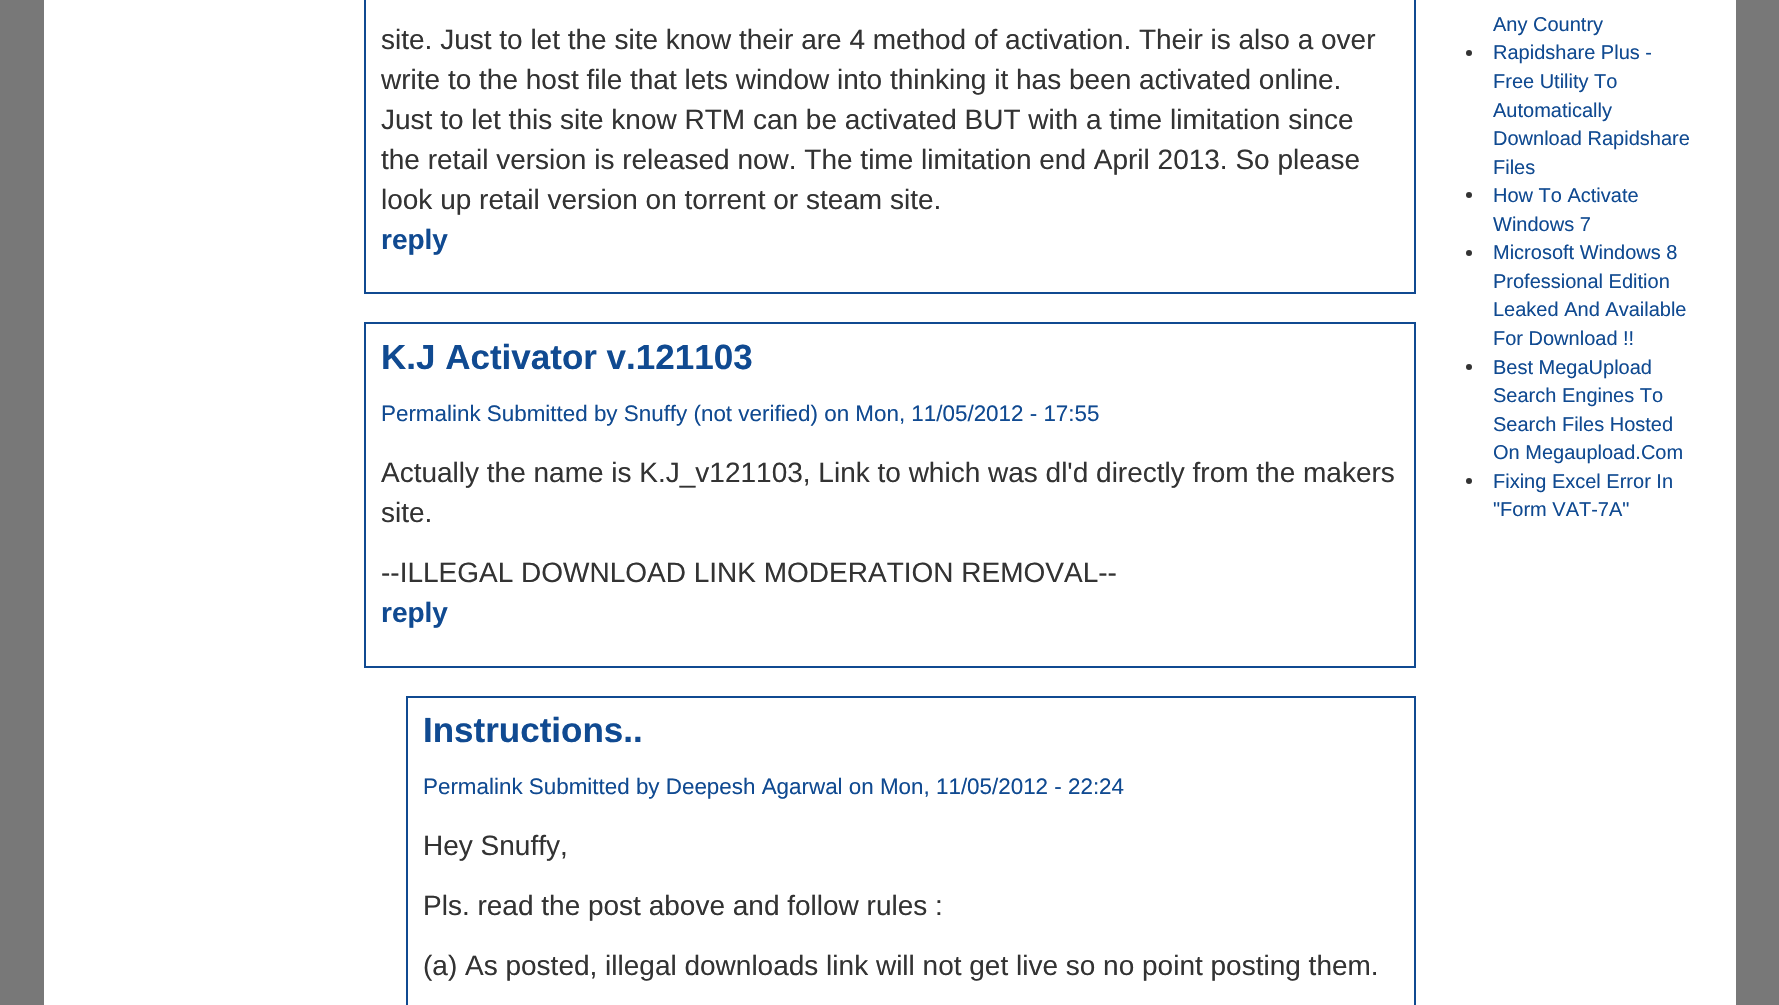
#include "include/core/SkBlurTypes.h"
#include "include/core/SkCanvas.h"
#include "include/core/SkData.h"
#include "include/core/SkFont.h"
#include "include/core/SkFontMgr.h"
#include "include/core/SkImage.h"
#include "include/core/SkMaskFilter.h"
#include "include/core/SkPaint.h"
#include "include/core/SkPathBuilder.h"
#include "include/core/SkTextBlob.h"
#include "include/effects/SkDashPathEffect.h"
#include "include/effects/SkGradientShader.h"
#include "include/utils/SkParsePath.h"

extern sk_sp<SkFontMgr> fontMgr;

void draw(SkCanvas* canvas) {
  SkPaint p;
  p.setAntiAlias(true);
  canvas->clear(SkColorSetRGB(120, 120, 120));
  p.setColor(SK_ColorWHITE);
  canvas->drawRect(SkRect::MakeLTRB(44, 0, 1736, 1005), p);
  p.setStyle(SkPaint::kStroke_Style);
  p.setStrokeWidth(2);
  p.setColor(SkColorSetRGB(16, 74, 145));
  canvas->drawRect(SkRect::MakeLTRB(365, -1, 1415, 293), p);
  canvas->drawRect(SkRect::MakeLTRB(365, 323, 1415, 667), p);
  canvas->drawRect(SkRect::MakeLTRB(407, 697, 1415, 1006), p);
  p.setStyle(SkPaint::kFill_Style);
  p.setColor(SkColorSetRGB(51, 51, 51));
  canvas->drawCircle(1469, 53, 3, p);
  canvas->drawCircle(1469, 195, 3, p);
  canvas->drawCircle(1469, 253, 3, p);
  canvas->drawCircle(1469, 367, 3, p);
  canvas->drawCircle(1469, 481, 3, p);
  SkFont font1(fontMgr->matchFamilyStyle("Liberation Sans", SkFontStyle::Normal()), 28);
  font1.setSubpixel(true);
  canvas->drawString("site. Just to let the site know their are 4 method of activation. Their is also a over", 381, 49, font1, p);
  canvas->drawString("write to the host file that lets window into thinking it has been activated online.", 381, 89, font1, p);
  canvas->drawString("Just to let this site know RTM can be activated BUT with a time limitation since", 381, 129, font1, p);
  canvas->drawString("the retail version is released now. The time limitation end April 2013. So please", 381, 169, font1, p);
  canvas->drawString("look up retail version on torrent or steam site.", 381, 209, font1, p);
  SkFont font2(fontMgr->matchFamilyStyle("Liberation Sans", SkFontStyle::Bold()), 28);
  font2.setSubpixel(true);
  p.setColor(SkColorSetRGB(16, 74, 145));
  canvas->drawString("reply", 381, 249, font2, p);
  SkFont font3(fontMgr->matchFamilyStyle("Liberation Sans", SkFontStyle::Bold()), 35);
  font3.setSubpixel(true);
  canvas->drawString("K.J Activator v.121103", 381, 369, font3, p);
  SkFont font4(fontMgr->matchFamilyStyle("Liberation Sans", SkFontStyle::Normal()), 22.4f);
  font4.setSubpixel(true);
  canvas->drawString("Permalink Submitted by Snuffy (not verified) on Mon, 11/05/2012 - 17:55", 381, 421, font4, p);
  p.setColor(SkColorSetRGB(51, 51, 51));
  canvas->drawString("Actually the name is K.J_v121103, Link to which was dl'd directly from the makers", 381, 482, font1, p);
  canvas->drawString("site.", 381, 522, font1, p);
  canvas->drawString("--ILLEGAL DOWNLOAD LINK MODERATION REMOVAL--", 381, 582, font1, p);
  p.setColor(SkColorSetRGB(16, 74, 145));
  canvas->drawString("reply", 381, 622, font2, p);
  canvas->drawString("Instructions..", 423, 742, font3, p);
  canvas->drawString("Permalink Submitted by Deepesh Agarwal on Mon, 11/05/2012 - 22:24", 423, 794, font4, p);
  p.setColor(SkColorSetRGB(51, 51, 51));
  canvas->drawString("Hey Snuffy,", 423, 855, font1, p);
  canvas->drawString("Pls. read the post above and follow rules :", 423, 915, font1, p);
  canvas->drawString("(a) As posted, illegal downloads link will not get live so no point posting them.", 423, 975, font1, p);
  SkFont font5(fontMgr->matchFamilyStyle("Liberation Sans", SkFontStyle::Normal()), 20);
  font5.setSubpixel(true);
  p.setColor(SkColorSetRGB(16, 74, 145));
  canvas->drawString("Any Country", 1493, 31, font5, p);
  canvas->drawString("Rapidshare Plus -", 1493, 59, font5, p);
  canvas->drawString("Free Utility To", 1493, 88, font5, p);
  canvas->drawString("Automatically", 1493, 117, font5, p);
  canvas->drawString("Download Rapidshare", 1493, 145, font5, p);
  canvas->drawString("Files", 1493, 174, font5, p);
  canvas->drawString("How To Activate", 1493, 202, font5, p);
  canvas->drawString("Windows 7", 1493, 231, font5, p);
  canvas->drawString("Microsoft Windows 8", 1493, 259, font5, p);
  canvas->drawString("Professional Edition", 1493, 288, font5, p);
  canvas->drawString("Leaked And Available", 1493, 316, font5, p);
  canvas->drawString("For Download !!", 1493, 345, font5, p);
  canvas->drawString("Best MegaUpload", 1493, 374, font5, p);
  canvas->drawString("Search Engines To", 1493, 402, font5, p);
  canvas->drawString("Search Files Hosted", 1493, 431, font5, p);
  canvas->drawString("On Megaupload.Com", 1493, 459, font5, p);
  canvas->drawString("Fixing Excel Error In", 1493, 488, font5, p);
  canvas->drawString("\"Form VAT-7A\"", 1493, 516, font5, p);
}
